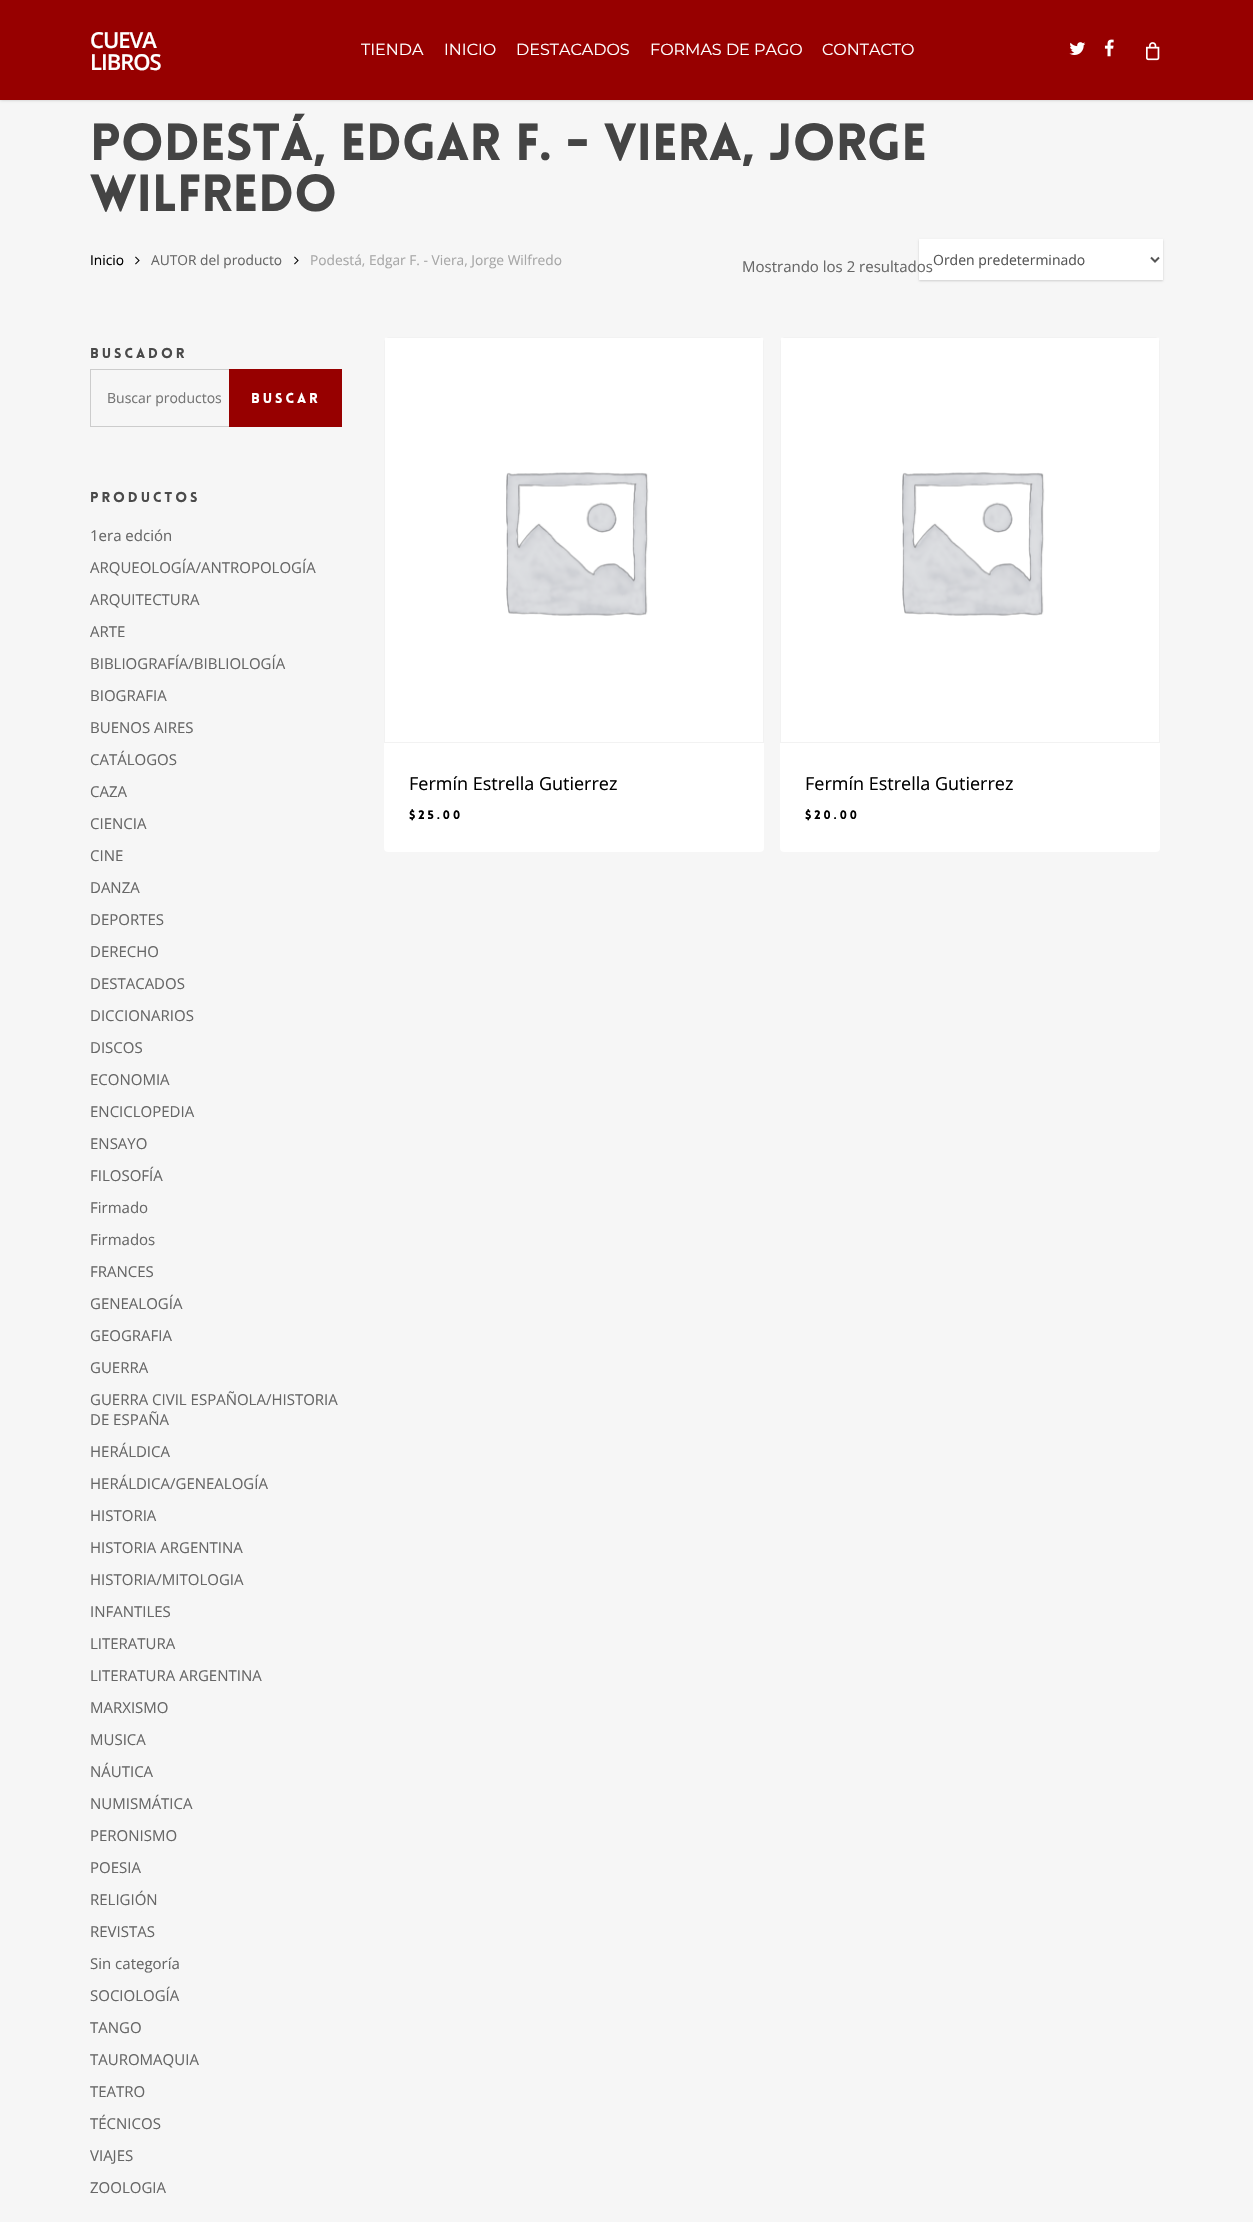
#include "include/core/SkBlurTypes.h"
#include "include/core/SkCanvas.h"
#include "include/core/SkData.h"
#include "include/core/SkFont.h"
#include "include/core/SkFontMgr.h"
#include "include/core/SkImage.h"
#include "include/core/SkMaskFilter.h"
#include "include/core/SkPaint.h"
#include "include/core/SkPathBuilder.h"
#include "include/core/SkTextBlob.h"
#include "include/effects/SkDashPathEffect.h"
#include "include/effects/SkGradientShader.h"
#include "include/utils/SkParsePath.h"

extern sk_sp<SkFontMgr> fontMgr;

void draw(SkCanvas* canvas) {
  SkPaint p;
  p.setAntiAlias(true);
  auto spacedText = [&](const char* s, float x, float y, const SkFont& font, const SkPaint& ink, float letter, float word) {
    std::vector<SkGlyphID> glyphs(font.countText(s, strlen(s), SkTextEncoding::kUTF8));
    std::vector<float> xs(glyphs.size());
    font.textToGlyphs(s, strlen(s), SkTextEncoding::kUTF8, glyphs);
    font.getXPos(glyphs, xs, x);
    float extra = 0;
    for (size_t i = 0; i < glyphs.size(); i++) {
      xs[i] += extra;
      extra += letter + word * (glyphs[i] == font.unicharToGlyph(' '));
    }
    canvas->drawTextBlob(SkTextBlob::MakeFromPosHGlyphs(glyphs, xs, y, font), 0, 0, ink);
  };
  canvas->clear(SkColorSetRGB(246, 246, 246));
  p.setColor(SkColorSetARGB(56, 0, 0, 0));
  p.setMaskFilter(SkMaskFilter::MakeBlur(kNormal_SkBlurStyle, 1.5f));
  canvas->drawRect(SkRect::MakeLTRB(0, 0, 1253, 100), p);
  p.setMaskFilter(nullptr);
  p.setColor(SkColorSetRGB(151, 0, 0));
  canvas->drawRect(SkRect::MakeLTRB(0, 0, 1253, 100), p);
  canvas->drawImageRect(SkImages::DeferredFromEncodedData(SkData::MakeFromFileName("images/1.png")), SkRect::MakeLTRB(1069, 42, 1086, 55), SkSamplingOptions());
  canvas->drawImageRect(SkImages::DeferredFromEncodedData(SkData::MakeFromFileName("images/2.png")), SkRect::MakeLTRB(1104, 39, 1114, 57), SkSamplingOptions());
  canvas->drawImageRect(SkImages::DeferredFromEncodedData(SkData::MakeFromFileName("images/3.png")), SkRect::MakeLTRB(1146, 42, 1160, 61), SkSamplingOptions());
  canvas->drawImageRect(SkImages::DeferredFromEncodedData(SkData::MakeFromFileName("images/4.png")), SkRect::MakeLTRB(135, 256, 140, 265), SkSamplingOptions());
  canvas->drawImageRect(SkImages::DeferredFromEncodedData(SkData::MakeFromFileName("images/4.png")), SkRect::MakeLTRB(294, 256, 299, 265), SkSamplingOptions());
  p.setColor(SkColorSetARGB(41, 0, 0, 0));
  p.setMaskFilter(SkMaskFilter::MakeBlur(kNormal_SkBlurStyle, 1));
  canvas->drawRect(SkRect::MakeLTRB(919, 240, 1163, 281), p);
  p.setMaskFilter(nullptr);
  p.setColor(SK_ColorWHITE);
  canvas->drawRect(SkRect::MakeLTRB(919, 239, 1163, 280), p);
  p.setStyle(SkPaint::kStroke_Style);
  p.setStrokeWidth(2);
  p.setColor(SkColorSetRGB(85, 85, 85));
  canvas->drawPath(SkPathBuilder().moveTo(1151, 257.5f).lineTo(1155, 261.5f).lineTo(1159, 257.5f).detach(), p);
  p.setStrokeWidth(1);
  p.setColor(SkColorSetRGB(204, 204, 204));
  canvas->drawRect(SkRect::MakeLTRB(90.5f, 369.5f, 341.5f, 426.5f), p);
  p.setStyle(SkPaint::kFill_Style);
  p.setColor(SkColorSetRGB(151, 0, 0));
  canvas->drawRect(SkRect::MakeLTRB(229, 369, 342, 427), p);
  p.setColor(SK_ColorWHITE);
  canvas->drawRoundRect(SkRect::MakeLTRB(384, 337, 764, 852), 4, 4, p);
  p.setColor(SkColorSetRGB(242, 242, 242));
  canvas->drawPath(SkPathBuilder(SkPathFillType::kEvenOdd).moveTo(384, 341).lineTo(384, 743).lineTo(764, 743).lineTo(764, 341).lineTo(763, 338).lineTo(763, 742).lineTo(385, 742).lineTo(385, 338).close().moveTo(388, 337).lineTo(385, 338).lineTo(763, 338).lineTo(760, 337).close().detach(), p);
  canvas->drawImageRect(SkImages::DeferredFromEncodedData(SkData::MakeFromFileName("images/5.png")), SkRect::MakeLTRB(506, 472, 649, 616), SkSamplingOptions());
  p.setColor(SK_ColorWHITE);
  canvas->drawRoundRect(SkRect::MakeLTRB(780, 337, 1160, 852), 4, 4, p);
  p.setColor(SkColorSetRGB(242, 242, 242));
  canvas->drawPath(SkPathBuilder(SkPathFillType::kEvenOdd).moveTo(780, 341).lineTo(780, 743).lineTo(1160, 743).lineTo(1160, 341).lineTo(1159, 338).lineTo(1159, 742).lineTo(781, 742).lineTo(781, 338).close().moveTo(784, 337).lineTo(781, 338).lineTo(1159, 338).lineTo(1156, 337).close().detach(), p);
  canvas->drawImageRect(SkImages::DeferredFromEncodedData(SkData::MakeFromFileName("images/5.png")), SkRect::MakeLTRB(902, 472, 1045, 616), SkSamplingOptions());
  SkFont font1(fontMgr->matchFamilyStyle("Open Sans", SkFontStyle(600, SkFontStyle::kNormal_Width, SkFontStyle::kUpright_Slant)), 22);
  font1.setSubpixel(true);
  p.setColor(SK_ColorWHITE);
  spacedText("CUEVA", 90, 48, font1, p, -1, 0);
  spacedText("LIBROS", 90, 70, font1, p, -1, 0);
  SkFont font2(fontMgr->matchFamilyStyle("Montserrat", SkFontStyle(100, SkFontStyle::kNormal_Width, SkFontStyle::kUpright_Slant)), 16);
  font2.setSubpixel(true);
  canvas->drawString("TIENDA", 361, 55, font2, p);
  canvas->drawString("INICIO", 444, 55, font2, p);
  canvas->drawString("DESTACADOS", 516, 55, font2, p);
  canvas->drawString("FORMAS DE PAGO", 650, 55, font2, p);
  canvas->drawString("CONTACTO", 822, 55, font2, p);
  SkFont font3(fontMgr->matchFamilyStyle("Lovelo", SkFontStyle(900, SkFontStyle::kNormal_Width, SkFontStyle::kUpright_Slant)), 51);
  font3.setSubpixel(true);
  p.setColor(SkColorSetRGB(68, 68, 68));
  canvas->drawString("Podestá, Edgar F. - Viera, Jorge", 90, 160, font3, p);
  canvas->drawString("Wilfredo", 90, 211, font3, p);
  SkFont font4(fontMgr->matchFamilyStyle("Open Sans", SkFontStyle::Normal()), 13.75f);
  font4.setSubpixel(true);
  p.setColor(SK_ColorBLACK);
  canvas->drawString("Inicio", 90, 265, font4, p);
  p.setColor(SkColorSetRGB(103, 103, 103));
  canvas->drawString("AUTOR del producto", 151, 265, font4, p);
  p.setColor(SkColorSetRGB(167, 167, 167));
  canvas->drawString("Podestá, Edgar F. - Viera, Jorge Wilfredo", 310, 265, font4, p);
  SkFont font5(fontMgr->matchFamilyStyle("Open Sans", SkFontStyle::Normal()), 15);
  font5.setSubpixel(true);
  p.setColor(SkColorSetRGB(103, 103, 103));
  canvas->drawString("Mostrando los 2 resultados", 742, 272, font5, p);
  SkFont font6(fontMgr->matchFamilyStyle("Open Sans", SkFontStyle::Normal()), 14);
  font6.setSubpixel(true);
  p.setColor(SkColorSetRGB(85, 85, 85));
  canvas->drawString("Orden predeterminado", 933, 265, font6, p);
  SkFont font7(fontMgr->matchFamilyStyle("Lovelo", SkFontStyle(900, SkFontStyle::kNormal_Width, SkFontStyle::kUpright_Slant)), 14);
  font7.setSubpixel(true);
  p.setColor(SkColorSetRGB(74, 74, 74));
  spacedText("BUSCADOR", 90, 358, font7, p, 3, 0);
  p.setColor(SkColorSetRGB(117, 117, 117));
  canvas->drawString("Buscar productos", 107, 403, font6, p);
  p.setColor(SK_ColorWHITE);
  spacedText("Buscar", 251, 403, font7, p, 3, 0);
  p.setColor(SkColorSetRGB(74, 74, 74));
  spacedText("Productos", 90, 502, font7, p, 3, 0);
  p.setColor(SkColorSetRGB(103, 103, 103));
  canvas->drawString("1era edción", 90, 541, font5, p);
  canvas->drawString("ARQUEOLOGÍA/ANTROPOLOGÍA", 90, 573, font5, p);
  canvas->drawString("ARQUITECTURA", 90, 605, font5, p);
  canvas->drawString("ARTE", 90, 637, font5, p);
  canvas->drawString("BIBLIOGRAFÍA/BIBLIOLOGÍA", 90, 669, font5, p);
  canvas->drawString("BIOGRAFIA", 90, 701, font5, p);
  canvas->drawString("BUENOS AIRES", 90, 733, font5, p);
  canvas->drawString("CATÁLOGOS", 90, 765, font5, p);
  canvas->drawString("CAZA", 90, 797, font5, p);
  canvas->drawString("CIENCIA", 90, 829, font5, p);
  canvas->drawString("CINE", 90, 861, font5, p);
  canvas->drawString("DANZA", 90, 893, font5, p);
  canvas->drawString("DEPORTES", 90, 925, font5, p);
  canvas->drawString("DERECHO", 90, 957, font5, p);
  canvas->drawString("DESTACADOS", 90, 989, font5, p);
  canvas->drawString("DICCIONARIOS", 90, 1021, font5, p);
  canvas->drawString("DISCOS", 90, 1053, font5, p);
  canvas->drawString("ECONOMIA", 90, 1085, font5, p);
  canvas->drawString("ENCICLOPEDIA", 90, 1117, font5, p);
  canvas->drawString("ENSAYO", 90, 1149, font5, p);
  canvas->drawString("FILOSOFÍA", 90, 1181, font5, p);
  canvas->drawString("Firmado", 90, 1213, font5, p);
  canvas->drawString("Firmados", 90, 1245, font5, p);
  canvas->drawString("FRANCES", 90, 1277, font5, p);
  canvas->drawString("GENEALOGÍA", 90, 1309, font5, p);
  canvas->drawString("GEOGRAFIA", 90, 1341, font5, p);
  canvas->drawString("GUERRA", 90, 1373, font5, p);
  canvas->drawString("GUERRA CIVIL ESPAÑOLA/HISTORIA", 90, 1405, font5, p);
  canvas->drawString("DE ESPAÑA", 90, 1425, font5, p);
  canvas->drawString("HERÁLDICA", 90, 1457, font5, p);
  canvas->drawString("HERÁLDICA/GENEALOGÍA", 90, 1489, font5, p);
  canvas->drawString("HISTORIA", 90, 1521, font5, p);
  canvas->drawString("HISTORIA ARGENTINA", 90, 1553, font5, p);
  canvas->drawString("HISTORIA/MITOLOGIA", 90, 1585, font5, p);
  canvas->drawString("INFANTILES", 90, 1617, font5, p);
  canvas->drawString("LITERATURA", 90, 1649, font5, p);
  canvas->drawString("LITERATURA ARGENTINA", 90, 1681, font5, p);
  canvas->drawString("MARXISMO", 90, 1713, font5, p);
  canvas->drawString("MUSICA", 90, 1745, font5, p);
  canvas->drawString("NÁUTICA", 90, 1777, font5, p);
  canvas->drawString("NUMISMÁTICA", 90, 1809, font5, p);
  canvas->drawString("PERONISMO", 90, 1841, font5, p);
  canvas->drawString("POESIA", 90, 1873, font5, p);
  canvas->drawString("RELIGIÓN", 90, 1905, font5, p);
  canvas->drawString("REVISTAS", 90, 1937, font5, p);
  canvas->drawString("Sin categoría", 90, 1969, font5, p);
  canvas->drawString("SOCIOLOGÍA", 90, 2001, font5, p);
  canvas->drawString("TANGO", 90, 2033, font5, p);
  canvas->drawString("TAUROMAQUIA", 90, 2065, font5, p);
  canvas->drawString("TEATRO", 90, 2097, font5, p);
  canvas->drawString("TÉCNICOS", 90, 2129, font5, p);
  canvas->drawString("VIAJES", 90, 2161, font5, p);
  canvas->drawString("ZOOLOGIA", 90, 2193, font5, p);
  SkFont font8(fontMgr->matchFamilyStyle("Open Sans", SkFontStyle::Normal()), 18);
  font8.setSubpixel(true);
  p.setColor(SK_ColorBLACK);
  canvas->drawString("Fermín Estrella Gutierrez", 409, 790, font8, p);
  SkFont font9(fontMgr->matchFamilyStyle("Lovelo", SkFontStyle(900, SkFontStyle::kNormal_Width, SkFontStyle::kUpright_Slant)), 12);
  font9.setSubpixel(true);
  spacedText("$25.00", 409, 819, font9, p, 3, 0);
  canvas->drawString("Fermín Estrella Gutierrez", 805, 790, font8, p);
  spacedText("$20.00", 805, 819, font9, p, 3, 0);
}
